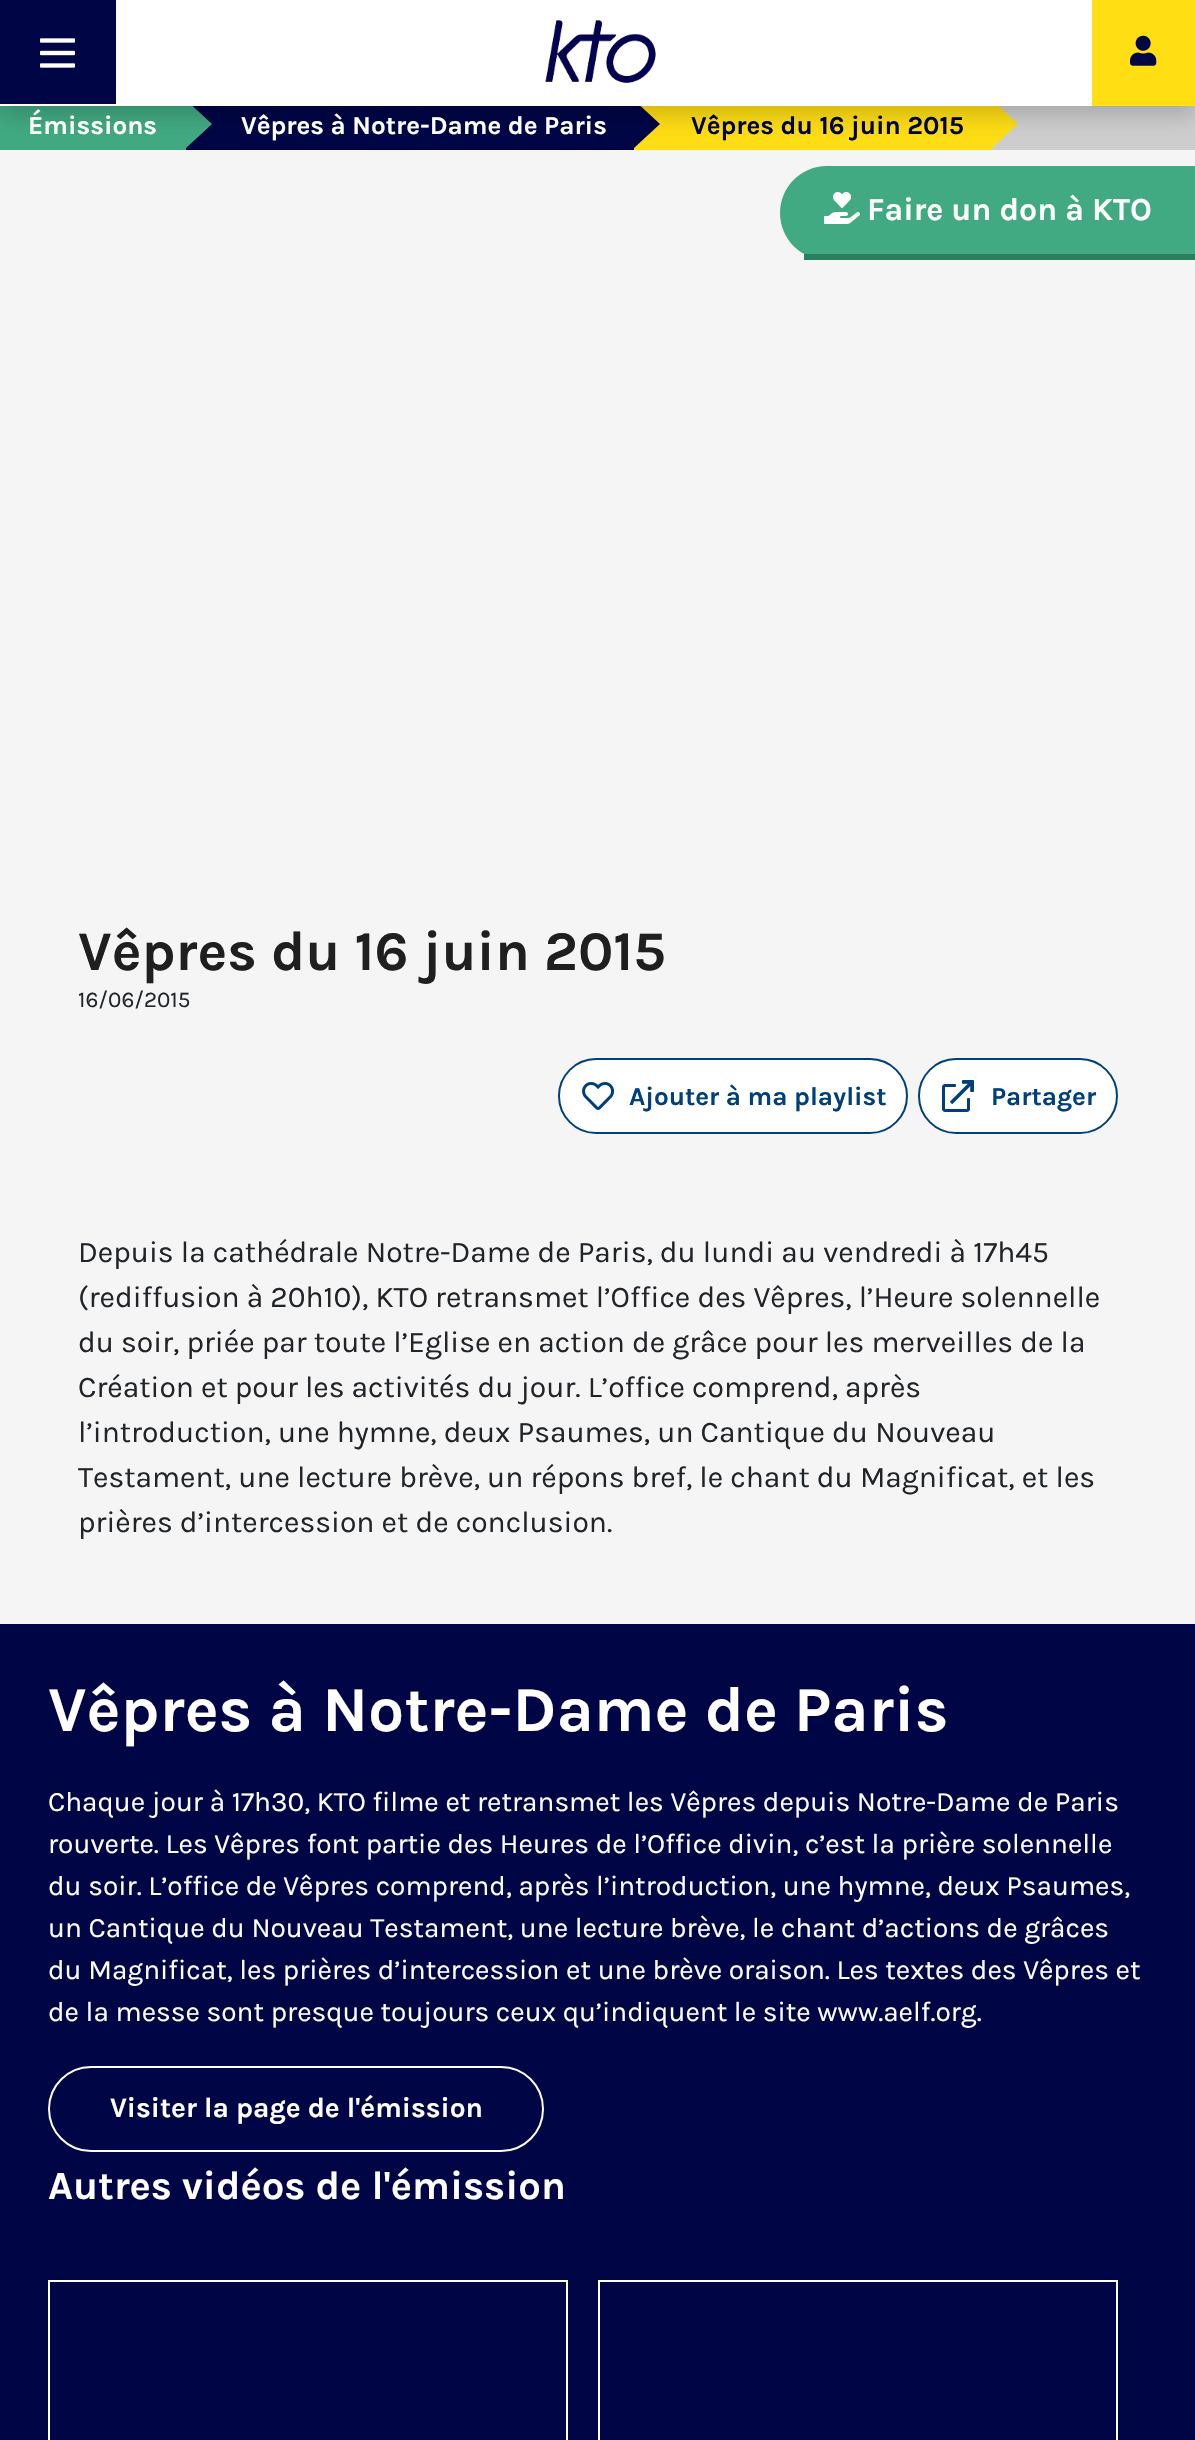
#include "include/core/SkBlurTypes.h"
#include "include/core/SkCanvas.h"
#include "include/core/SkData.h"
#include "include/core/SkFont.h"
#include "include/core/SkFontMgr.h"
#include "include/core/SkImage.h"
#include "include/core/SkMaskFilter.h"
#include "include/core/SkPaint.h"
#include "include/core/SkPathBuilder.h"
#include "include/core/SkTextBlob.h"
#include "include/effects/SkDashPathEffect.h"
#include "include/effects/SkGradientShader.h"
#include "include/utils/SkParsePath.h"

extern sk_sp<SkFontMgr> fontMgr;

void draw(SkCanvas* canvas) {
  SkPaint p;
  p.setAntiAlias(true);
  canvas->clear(SkColorSetRGB(206, 206, 206));
  p.setColor(SkColorSetRGB(65, 170, 130));
  canvas->drawRect(SkRect::MakeLTRB(0, 106, 186, 150), p);
  p.setColor(SkColorSetRGB(0, 5, 70));
  canvas->drawRect(SkRect::MakeLTRB(186, 106, 634, 150), p);
  p.setColor(SkColorSetRGB(65, 170, 130));
  canvas->drawPath(SkPathBuilder().moveTo(186, 148).lineTo(186, 100).lineTo(212, 124).close().detach(), p);
  p.setColor(SkColorSetRGB(255, 222, 20));
  canvas->drawRect(SkRect::MakeLTRB(634, 106, 992, 150), p);
  p.setColor(SkColorSetRGB(0, 5, 70));
  canvas->drawPath(SkPathBuilder().moveTo(634, 148).lineTo(634, 100).lineTo(660, 124).close().detach(), p);
  p.setColor(SkColorSetRGB(255, 222, 20));
  canvas->drawPath(SkPathBuilder().moveTo(992, 148).lineTo(992, 100).lineTo(1018, 124).close().detach(), p);
  p.setColor(SkColorSetRGB(245, 245, 245));
  canvas->drawRect(SkRect::MakeLTRB(0, 150, 1195, 1624), p);
  p.setColor(SkColorSetARGB(51, 0, 0, 0));
  p.setMaskFilter(SkMaskFilter::MakeBlur(kNormal_SkBlurStyle, 12));
  canvas->drawRect(SkRect::MakeLTRB(-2, 4, 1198, 114), p);
  p.setMaskFilter(nullptr);
  p.setColor(SK_ColorWHITE);
  canvas->drawRect(SkRect::MakeLTRB(0, 0, 1092, 106), p);
  p.setColor(SkColorSetRGB(0, 5, 70));
  canvas->drawRect(SkRect::MakeLTRB(0, 0, 116, 104), p);
  canvas->drawImageRect(SkImages::DeferredFromEncodedData(SkData::MakeFromFileName("images/1.png")), SkRect::MakeLTRB(40, 38, 75, 68), SkSamplingOptions());
  canvas->drawImageRect(SkImages::DeferredFromEncodedData(SkData::MakeFromFileName("images/2.png")), SkRect::MakeLTRB(545, 20, 656, 83), SkSamplingOptions());
  p.setColor(SkColorSetRGB(255, 222, 20));
  canvas->drawRect(SkRect::MakeLTRB(1092, 0, 1195, 106), p);
  canvas->drawImageRect(SkImages::DeferredFromEncodedData(SkData::MakeFromFileName("images/3.png")), SkRect::MakeLTRB(1130, 35, 1157, 66), SkSamplingOptions());
  p.setColor(SkColorSetRGB(65, 170, 130));
  canvas->drawPath(SkPathBuilder().moveTo(827, 166).lineTo(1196, 166).lineTo(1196, 260).lineTo(827, 260).cubicTo(801, 260, 780, 239, 780, 213).cubicTo(780, 187, 801, 166, 827, 166).close().detach(), p);
  p.setColor(SkColorSetRGB(41, 127, 94));
  canvas->drawRect(SkRect::MakeLTRB(804, 254, 1195, 260), p);
  canvas->drawImageRect(SkImages::DeferredFromEncodedData(SkData::MakeFromFileName("images/4.png")), SkRect::MakeLTRB(824, 192, 860, 224), SkSamplingOptions());
  p.setColor(SK_ColorWHITE);
  canvas->drawRoundRect(SkRect::MakeLTRB(559, 1059, 907, 1133), 37, 37, p);
  p.setStyle(SkPaint::kStroke_Style);
  p.setStrokeWidth(2);
  p.setColor(SkColorSetRGB(0, 64, 122));
  canvas->drawRoundRect(SkRect::MakeLTRB(559, 1059, 907, 1133), 37, 37, p);
  canvas->drawImageRect(SkImages::DeferredFromEncodedData(SkData::MakeFromFileName("images/5.png")), SkRect::MakeLTRB(582, 1082, 615, 1110), SkSamplingOptions());
  p.setStyle(SkPaint::kFill_Style);
  p.setColor(SK_ColorWHITE);
  canvas->drawRoundRect(SkRect::MakeLTRB(919, 1059, 1117, 1133), 37, 37, p);
  p.setStyle(SkPaint::kStroke_Style);
  p.setColor(SkColorSetRGB(0, 64, 122));
  canvas->drawRoundRect(SkRect::MakeLTRB(919, 1059, 1117, 1133), 37, 37, p);
  canvas->drawImageRect(SkImages::DeferredFromEncodedData(SkData::MakeFromFileName("images/6.png")), SkRect::MakeLTRB(942, 1080, 974, 1112), SkSamplingOptions());
  p.setStyle(SkPaint::kFill_Style);
  p.setColor(SkColorSetRGB(0, 5, 70));
  canvas->drawRect(SkRect::MakeLTRB(0, 1624, 1195, 2440), p);
  p.setStyle(SkPaint::kStroke_Style);
  p.setColor(SK_ColorWHITE);
  canvas->drawRoundRect(SkRect::MakeLTRB(49, 2067, 543, 2151), 42, 42, p);
  canvas->drawRect(SkRect::MakeLTRB(49, 2281, 567, 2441), p);
  canvas->drawRect(SkRect::MakeLTRB(599, 2281, 1117, 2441), p);
  SkFont font1(fontMgr->matchFamilyStyle("Karla", SkFontStyle::Bold()), 26);
  font1.setSubpixel(true);
  p.setStyle(SkPaint::kFill_Style);
  canvas->drawString("Émissions", 28, 134, font1, p);
  canvas->drawString("Vêpres à Notre-Dame de Paris", 241, 134, font1, p);
  p.setColor(SkColorSetRGB(0, 5, 70));
  canvas->drawString("Vêpres du 16 juin 2015", 691, 134, font1, p);
  SkFont font2(fontMgr->matchFamilyStyle("Karla", SkFontStyle::Bold()), 32);
  font2.setSubpixel(true);
  p.setColor(SK_ColorWHITE);
  canvas->drawString("Faire un don à KTO", 867, 220, font2, p);
  SkFont font3(fontMgr->matchFamilyStyle("Karla", SkFontStyle::Bold()), 56);
  font3.setSubpixel(true);
  p.setColor(SkColorSetRGB(31, 31, 31));
  canvas->drawString("Vêpres du 16 juin 2015", 78, 970, font3, p);
  SkFont font4(fontMgr->matchFamilyStyle("Karla", SkFontStyle::Normal()), 22.5f);
  font4.setSubpixel(true);
  p.setColor(SkColorSetRGB(33, 37, 41));
  canvas->drawString("16/06/2015", 78, 1007, font4, p);
  p.setColor(SkColorSetRGB(0, 64, 122));
  canvas->drawString("Ajouter à ma playlist", 629, 1105, font1, p);
  canvas->drawString("Partager", 991, 1105, font1, p);
  SkFont font5(fontMgr->matchFamilyStyle("Karla", SkFontStyle::Normal()), 30);
  font5.setSubpixel(true);
  p.setColor(SkColorSetRGB(33, 37, 41));
  canvas->drawString("Depuis la cathédrale Notre-Dame de Paris, du lundi au vendredi à 17h45", 78, 1262, font5, p);
  canvas->drawString("(rediffusion à 20h10), KTO retransmet l’Office des Vêpres, l’Heure solennelle", 78, 1307, font5, p);
  canvas->drawString("du soir, priée par toute l’Eglise en action de grâce pour les merveilles de la", 78, 1352, font5, p);
  canvas->drawString("Création et pour les activités du jour. L’office comprend, après", 78, 1397, font5, p);
  canvas->drawString("l’introduction, une hymne, deux Psaumes, un Cantique du Nouveau", 78, 1442, font5, p);
  canvas->drawString("Testament, une lecture brève, un répons bref, le chant du Magnificat, et les", 78, 1487, font5, p);
  canvas->drawString("prières d’intercession et de conclusion.", 78, 1532, font5, p);
  SkFont font6(fontMgr->matchFamilyStyle("Karla", SkFontStyle::Bold()), 64);
  font6.setSubpixel(true);
  p.setColor(SK_ColorWHITE);
  canvas->drawString("Vêpres à Notre-Dame de Paris", 48, 1731, font6, p);
  SkFont font7(fontMgr->matchFamilyStyle("Karla", SkFontStyle::Normal()), 28);
  font7.setSubpixel(true);
  canvas->drawString("Chaque jour à 17h30, KTO filme et retransmet les Vêpres depuis Notre-Dame de Paris", 48, 1811, font7, p);
  canvas->drawString("rouverte. Les Vêpres font partie des Heures de l’Office divin, c’est la prière solennelle", 48, 1853, font7, p);
  canvas->drawString("du soir. L’office de Vêpres comprend, après l’introduction, une hymne, deux Psaumes,", 48, 1895, font7, p);
  canvas->drawString("un Cantique du Nouveau Testament, une lecture brève, le chant d’actions de grâces", 48, 1937, font7, p);
  canvas->drawString("du Magnificat, les prières d’intercession et une brève oraison. Les textes des Vêpres et", 48, 1979, font7, p);
  canvas->drawString("de la messe sont presque toujours ceux qu’indiquent le site www.aelf.org.", 48, 2021, font7, p);
  SkFont font8(fontMgr->matchFamilyStyle("Karla", SkFontStyle::Bold()), 28);
  font8.setSubpixel(true);
  canvas->drawString("Visiter la page de l'émission", 110, 2117, font8, p);
  SkFont font9(fontMgr->matchFamilyStyle("Karla", SkFontStyle::Bold()), 40);
  font9.setSubpixel(true);
  canvas->drawString("Autres vidéos de l'émission", 48, 2199, font9, p);
}
